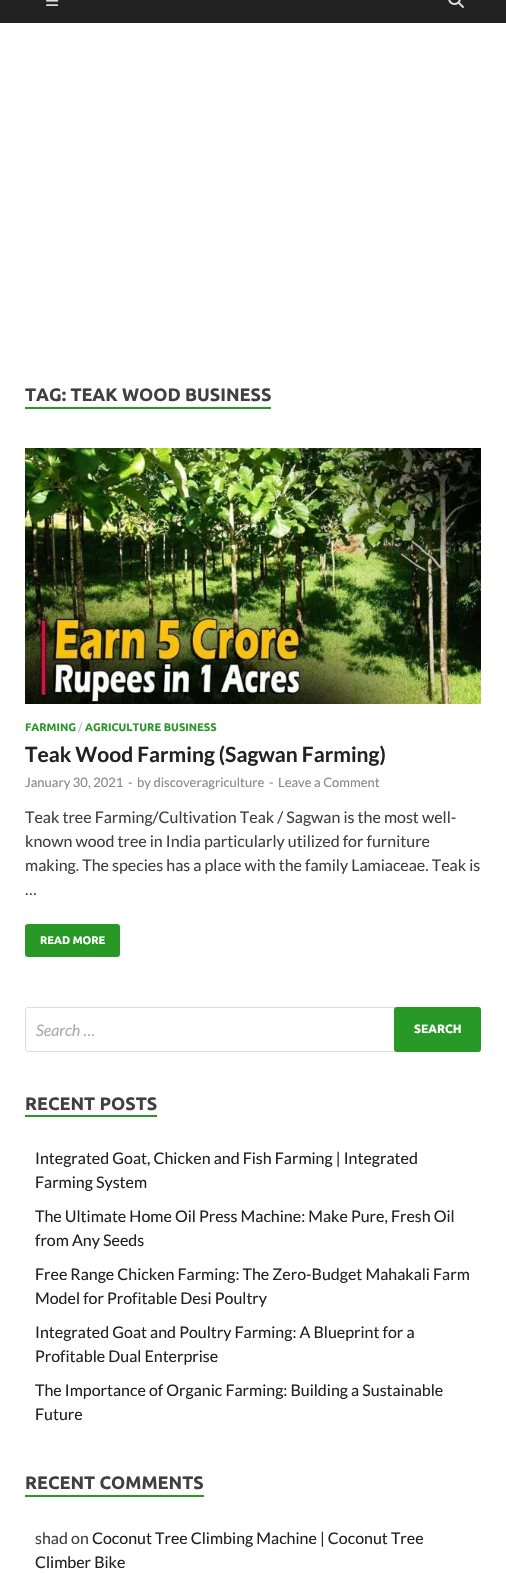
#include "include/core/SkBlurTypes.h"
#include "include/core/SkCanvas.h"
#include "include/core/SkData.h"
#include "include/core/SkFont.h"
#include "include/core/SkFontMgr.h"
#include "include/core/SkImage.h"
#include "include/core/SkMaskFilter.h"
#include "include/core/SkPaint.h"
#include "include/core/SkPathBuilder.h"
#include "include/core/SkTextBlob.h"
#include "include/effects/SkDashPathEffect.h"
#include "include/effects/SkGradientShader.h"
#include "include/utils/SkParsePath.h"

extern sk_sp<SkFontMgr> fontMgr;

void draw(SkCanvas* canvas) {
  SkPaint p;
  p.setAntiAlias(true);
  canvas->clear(SK_ColorWHITE);
  p.setColor(SkColorSetRGB(34, 34, 34));
  canvas->drawRect(SkRect::MakeLTRB(0, 0, 506, 23), p);
  canvas->drawImageRect(SkImages::DeferredFromEncodedData(SkData::MakeFromFileName("images/1.png")), SkRect::MakeLTRB(46, 0, 59, 6), SkSamplingOptions());
  canvas->drawImageRect(SkImages::DeferredFromEncodedData(SkData::MakeFromFileName("images/2.png")), SkRect::MakeLTRB(448, 0, 464, 8), SkSamplingOptions());
  p.setColor(SkColorSetRGB(40, 152, 39));
  canvas->drawRect(SkRect::MakeLTRB(25, 407, 271, 409), p);
  canvas->drawImageRect(SkImages::DeferredFromEncodedData(SkData::MakeFromFileName("images/3.png")), SkRect::MakeLTRB(25, 448, 481, 704), SkSamplingOptions());
  canvas->drawRoundRect(SkRect::MakeLTRB(25, 924, 120, 957), 3, 3, p);
  p.setStyle(SkPaint::kStroke_Style);
  p.setStrokeWidth(1);
  p.setColor(SkColorSetRGB(221, 221, 221));
  canvas->drawRoundRect(SkRect::MakeLTRB(25.5f, 1007.5f, 480.5f, 1051.5f), 2.5f, 2.5f, p);
  p.setStyle(SkPaint::kFill_Style);
  p.setColor(SkColorSetRGB(40, 152, 39));
  canvas->drawRoundRect(SkRect::MakeLTRB(394, 1007, 481, 1052), 3, 3, p);
  canvas->drawRect(SkRect::MakeLTRB(25, 1115, 157, 1117), p);
  canvas->drawRect(SkRect::MakeLTRB(25, 1495, 204, 1497), p);
  SkFont font1(fontMgr->matchFamilyStyle("Ubuntu", SkFontStyle::Bold()), 18);
  font1.setSubpixel(true);
  p.setColor(SkColorSetRGB(64, 64, 64));
  canvas->drawString("TAG: TEAK WOOD BUSINESS", 25, 401, font1, p);
  SkFont font2(fontMgr->matchFamilyStyle("Ubuntu", SkFontStyle::Bold()), 11);
  font2.setSubpixel(true);
  p.setColor(SkColorSetRGB(40, 152, 39));
  canvas->drawString("FARMING", 25, 731, font2, p);
  SkFont font3(fontMgr->matchFamilyStyle("Ubuntu", SkFontStyle::Normal()), 11);
  font3.setSubpixel(true);
  p.setColor(SkColorSetRGB(187, 187, 187));
  canvas->drawString("/", 78, 731, font3, p);
  p.setColor(SkColorSetRGB(40, 152, 39));
  canvas->drawString("AGRICULTURE BUSINESS", 85, 731, font2, p);
  SkFont font4(fontMgr->matchFamilyStyle("Lato", SkFontStyle::Bold()), 21);
  font4.setSubpixel(true);
  p.setColor(SkColorSetRGB(34, 34, 34));
  canvas->drawString("Teak Wood Farming (Sagwan Farming)", 25, 762, font4, p);
  SkFont font5(fontMgr->matchFamilyStyle("Lato", SkFontStyle::Normal()), 13);
  font5.setSubpixel(true);
  p.setColor(SkColorSetRGB(136, 136, 136));
  canvas->drawString("January 30, 2021", 25, 787, font5, p);
  canvas->drawString("-", 128, 787, font5, p);
  canvas->drawString("by discoveragriculture", 137, 787, font5, p);
  canvas->drawString("-", 269, 787, font5, p);
  canvas->drawString("Leave a Comment", 278, 787, font5, p);
  SkFont font6(fontMgr->matchFamilyStyle("Lato", SkFontStyle::Normal()), 16);
  font6.setSubpixel(true);
  p.setColor(SkColorSetRGB(64, 64, 64));
  canvas->drawString("Teak tree Farming/Cultivation Teak / Sagwan is the most well-", 25, 823, font6, p);
  canvas->drawString("known wood tree in India particularly utilized for furniture", 25, 847, font6, p);
  canvas->drawString("making. The species has a place with the family Lamiaceae. Teak is", 25, 871, font6, p);
  canvas->drawString("…", 25, 895, font6, p);
  p.setColor(SK_ColorWHITE);
  canvas->drawString("READ MORE", 40, 944, font2, p);
  SkFont font7(fontMgr->matchFamilyStyle("Lato", SkFontStyle::Italic()), 16);
  font7.setSubpixel(true);
  p.setColor(SkColorSetRGB(170, 170, 170));
  canvas->drawString("Search …", 36, 1036, font7, p);
  SkFont font8(fontMgr->matchFamilyStyle("Ubuntu", SkFontStyle::Bold()), 12);
  font8.setSubpixel(true);
  p.setColor(SK_ColorWHITE);
  canvas->drawString("SEARCH", 414, 1033, font8, p);
  p.setColor(SkColorSetRGB(64, 64, 64));
  canvas->drawString("RECENT POSTS", 25, 1110, font1, p);
  p.setColor(SkColorSetRGB(34, 34, 34));
  canvas->drawString("Integrated Goat, Chicken and Fish Farming | Integrated", 35, 1164, font6, p);
  canvas->drawString("Farming System", 35, 1188, font6, p);
  canvas->drawString("The Ultimate Home Oil Press Machine: Make Pure, Fresh Oil", 35, 1222, font6, p);
  canvas->drawString("from Any Seeds", 35, 1246, font6, p);
  canvas->drawString("Free Range Chicken Farming: The Zero-Budget Mahakali Farm", 35, 1280, font6, p);
  canvas->drawString("Model for Profitable Desi Poultry", 35, 1304, font6, p);
  canvas->drawString("Integrated Goat and Poultry Farming: A Blueprint for a", 35, 1338, font6, p);
  canvas->drawString("Profitable Dual Enterprise", 35, 1362, font6, p);
  canvas->drawString("The Importance of Organic Farming: Building a Sustainable", 35, 1396, font6, p);
  canvas->drawString("Future", 35, 1420, font6, p);
  p.setColor(SkColorSetRGB(64, 64, 64));
  canvas->drawString("RECENT COMMENTS", 25, 1489, font1, p);
  canvas->drawString("shad on", 35, 1544, font6, p);
  p.setColor(SkColorSetRGB(34, 34, 34));
  canvas->drawString("Coconut Tree Climbing Machine | Coconut Tree", 92, 1544, font6, p);
  canvas->drawString("Climber Bike", 35, 1568, font6, p);
}
